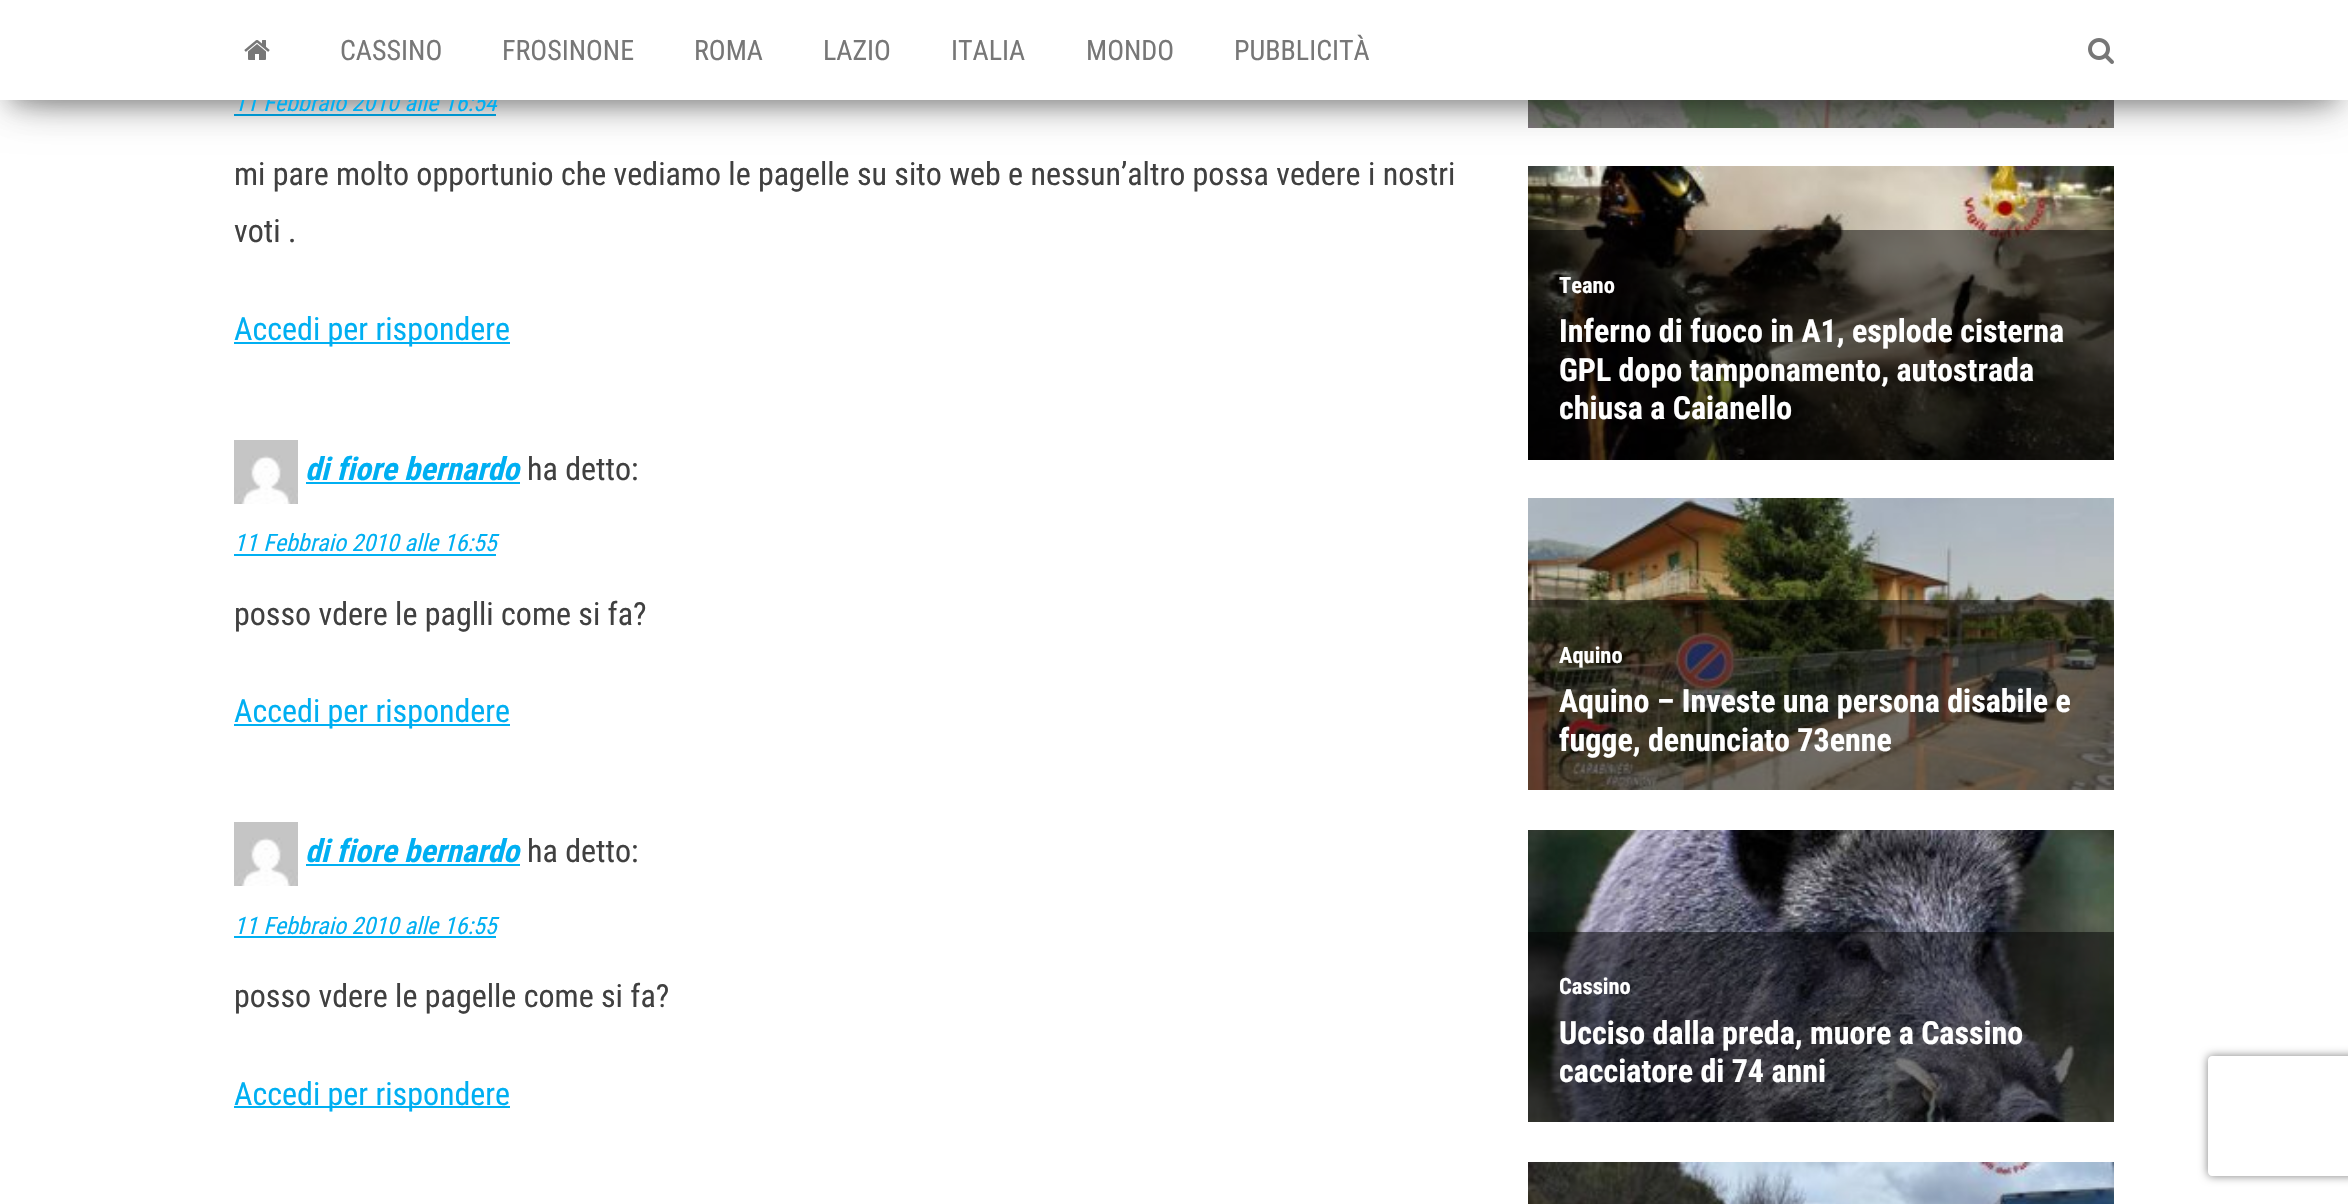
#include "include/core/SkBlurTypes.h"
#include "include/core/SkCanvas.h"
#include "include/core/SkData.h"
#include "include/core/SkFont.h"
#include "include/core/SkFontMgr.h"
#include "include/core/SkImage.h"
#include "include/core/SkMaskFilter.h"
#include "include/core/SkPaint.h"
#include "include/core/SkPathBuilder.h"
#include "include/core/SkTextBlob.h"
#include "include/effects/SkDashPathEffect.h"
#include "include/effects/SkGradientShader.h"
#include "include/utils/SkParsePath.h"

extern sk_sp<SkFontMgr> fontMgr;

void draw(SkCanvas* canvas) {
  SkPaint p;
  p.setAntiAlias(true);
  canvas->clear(SK_ColorWHITE);
  p.setColor(SkColorSetRGB(0, 175, 242));
  canvas->drawRect(SkRect::MakeLTRB(234, 114, 496, 116), p);
  canvas->drawImageRect(SkImages::DeferredFromEncodedData(SkData::MakeFromFileName("images/4.png")), SkRect::MakeLTRB(1528, 100, 2114, 128), SkSamplingOptions());
  p.setColor(SkColorSetARGB(51, 0, 0, 0));
  p.setMaskFilter(SkMaskFilter::MakeBlur(kNormal_SkBlurStyle, 10));
  canvas->drawRect(SkRect::MakeLTRB(10, 26, 2338, 106), p);
  p.setMaskFilter(nullptr);
  canvas->drawImageRect(SkImages::DeferredFromEncodedData(SkData::MakeFromFileName("images/5.png")), SkRect::MakeLTRB(1528, 166, 2114, 460), SkSamplingOptions());
  p.setColor(SkColorSetARGB(31, 0, 0, 0));
  p.setMaskFilter(SkMaskFilter::MakeBlur(kNormal_SkBlurStyle, 20));
  canvas->drawRect(SkRect::MakeLTRB(0, 6, 2348, 106), p);
  p.setMaskFilter(nullptr);
  p.setColor(SkColorSetARGB(107, 0, 0, 0));
  p.setMaskFilter(SkMaskFilter::MakeBlur(kNormal_SkBlurStyle, 20));
  canvas->drawRect(SkRect::MakeLTRB(24, 44, 2324, 96), p);
  p.setMaskFilter(nullptr);
  p.setColor(SkColorSetRGB(0, 175, 242));
  canvas->drawRect(SkRect::MakeLTRB(234, 342, 510, 344), p);
  canvas->drawImageRect(SkImages::DeferredFromEncodedData(SkData::MakeFromFileName("images/3.png")), SkRect::MakeLTRB(234, 440, 298, 504), SkSamplingOptions());
  canvas->drawRect(SkRect::MakeLTRB(306, 482, 520, 484), p);
  canvas->drawRect(SkRect::MakeLTRB(234, 554, 496, 556), p);
  canvas->drawRect(SkRect::MakeLTRB(234, 724, 510, 726), p);
  canvas->drawImageRect(SkImages::DeferredFromEncodedData(SkData::MakeFromFileName("images/3.png")), SkRect::MakeLTRB(234, 822, 298, 886), SkSamplingOptions());
  canvas->drawRect(SkRect::MakeLTRB(306, 864, 520, 866), p);
  canvas->drawRect(SkRect::MakeLTRB(234, 936, 496, 938), p);
  canvas->drawRect(SkRect::MakeLTRB(234, 1106, 510, 1108), p);
  p.setColor(SkColorSetARGB(128, 0, 0, 0));
  canvas->drawRect(SkRect::MakeLTRB(1528, 230, 2114, 460), p);
  canvas->drawImageRect(SkImages::DeferredFromEncodedData(SkData::MakeFromFileName("images/6.png")), SkRect::MakeLTRB(1528, 498, 2114, 790), SkSamplingOptions());
  canvas->drawRect(SkRect::MakeLTRB(1528, 600, 2114, 790), p);
  canvas->drawImageRect(SkImages::DeferredFromEncodedData(SkData::MakeFromFileName("images/7.png")), SkRect::MakeLTRB(1528, 830, 2114, 1122), SkSamplingOptions());
  canvas->drawRect(SkRect::MakeLTRB(1528, 932, 2114, 1122), p);
  canvas->drawImageRect(SkImages::DeferredFromEncodedData(SkData::MakeFromFileName("images/8.png")), SkRect::MakeLTRB(1528, 1162, 2114, 1204), SkSamplingOptions());
  canvas->save();
  canvas->clipPath(SkPathBuilder(SkPathFillType::kEvenOdd).moveTo(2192, 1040).lineTo(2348, 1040).lineTo(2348, 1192).lineTo(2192, 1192).close().moveTo(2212, 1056).lineTo(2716, 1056).cubicTo(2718, 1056, 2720, 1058, 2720, 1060).lineTo(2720, 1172).cubicTo(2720, 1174, 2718, 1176, 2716, 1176).lineTo(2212, 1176).cubicTo(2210, 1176, 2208, 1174, 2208, 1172).lineTo(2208, 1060).cubicTo(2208, 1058, 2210, 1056, 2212, 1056).close().detach(), true);
  p.setColor(SkColorSetRGB(128, 128, 128));
  p.setMaskFilter(SkMaskFilter::MakeBlur(kNormal_SkBlurStyle, 5));
  canvas->drawRoundRect(SkRect::MakeLTRB(2208, 1056, 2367, 1176), 4, 4, p);
  p.setMaskFilter(nullptr);
  canvas->restore();
  SkFont font1(fontMgr->matchFamilyStyle("Roboto Condensed", SkFontStyle::Italic()), 24);
  font1.setSubpixel(true);
  p.setColor(SkColorSetRGB(0, 175, 242));
  canvas->drawString("11 Febbraio 2010 alle 16:54", 234, 111, font1, p);
  p.setColor(SK_ColorWHITE);
  canvas->drawRect(SkRect::MakeLTRB(0, 0, 2348, 100), p);
  canvas->drawImageRect(SkImages::DeferredFromEncodedData(SkData::MakeFromFileName("images/2.png")), SkRect::MakeLTRB(2088, 38, 2114, 64), SkSamplingOptions());
  SkFont font2(fontMgr->matchFamilyStyle("Roboto Condensed", SkFontStyle::Normal()), 28);
  font2.setSubpixel(true);
  p.setColor(SkColorSetRGB(119, 119, 119));
  canvas->drawString("PUBBLICITÀ", 1234, 60, font2, p);
  canvas->drawString("MONDO", 1086, 60, font2, p);
  canvas->drawString("ITALIA", 951, 60, font2, p);
  canvas->drawString("LAZIO", 823, 60, font2, p);
  canvas->drawString("ROMA", 694, 60, font2, p);
  canvas->drawString("FROSINONE", 502, 60, font2, p);
  canvas->drawString("CASSINO", 340, 60, font2, p);
  canvas->drawImageRect(SkImages::DeferredFromEncodedData(SkData::MakeFromFileName("images/1.png")), SkRect::MakeLTRB(244, 40, 270, 60), SkSamplingOptions());
  SkFont font3(fontMgr->matchFamilyStyle("Roboto Condensed", SkFontStyle::Normal()), 32);
  font3.setSubpixel(true);
  p.setColor(SkColorSetRGB(64, 64, 64));
  canvas->drawString("mi pare molto opportunio che vediamo le pagelle su sito web e nessun’altro possa vedere i nostri", 234, 185, font3, p);
  canvas->drawString("voti .", 234, 242, font3, p);
  p.setColor(SkColorSetRGB(0, 175, 242));
  canvas->drawString("Accedi per rispondere", 234, 340, font3, p);
  SkFont font4(fontMgr->matchFamilyStyle("Roboto Condensed", SkFontStyle::BoldItalic()), 32);
  font4.setSubpixel(true);
  canvas->drawString("di fiore bernardo", 305, 480, font4, p);
  p.setColor(SkColorSetRGB(64, 64, 64));
  canvas->drawString("ha detto:", 527, 480, font3, p);
  p.setColor(SkColorSetRGB(0, 175, 242));
  canvas->drawString("11 Febbraio 2010 alle 16:55", 234, 551, font1, p);
  p.setColor(SkColorSetRGB(64, 64, 64));
  canvas->drawString("posso vdere le paglli come si fa?", 234, 625, font3, p);
  p.setColor(SkColorSetRGB(0, 175, 242));
  canvas->drawString("Accedi per rispondere", 234, 722, font3, p);
  canvas->drawString("di fiore bernardo", 305, 862, font4, p);
  p.setColor(SkColorSetRGB(64, 64, 64));
  canvas->drawString("ha detto:", 527, 862, font3, p);
  p.setColor(SkColorSetRGB(0, 175, 242));
  canvas->drawString("11 Febbraio 2010 alle 16:55", 234, 934, font1, p);
  p.setColor(SkColorSetRGB(64, 64, 64));
  canvas->drawString("posso vdere le pagelle come si fa?", 234, 1007, font3, p);
  p.setColor(SkColorSetRGB(0, 175, 242));
  canvas->drawString("Accedi per rispondere", 234, 1105, font3, p);
  SkFont font5(fontMgr->matchFamilyStyle("Roboto Condensed", SkFontStyle::Bold()), 22.5f);
  font5.setSubpixel(true);
  p.setColor(SK_ColorWHITE);
  canvas->drawString("Teano", 1559, 293, font5, p);
  SkFont font6(fontMgr->matchFamilyStyle("Roboto Condensed", SkFontStyle::Bold()), 32);
  font6.setSubpixel(true);
  canvas->drawString("Inferno di fuoco in A1, esplode cisterna", 1559, 342, font6, p);
  canvas->drawString("GPL dopo tamponamento, autostrada", 1559, 381, font6, p);
  canvas->drawString("chiusa a Caianello", 1559, 419, font6, p);
  canvas->drawString("Aquino", 1559, 663, font5, p);
  canvas->drawString("Aquino – Investe una persona disabile e", 1559, 712, font6, p);
  canvas->drawString("fugge, denunciato 73enne", 1559, 751, font6, p);
  canvas->drawString("Cassino", 1559, 994, font5, p);
  canvas->drawString("Ucciso dalla preda, muore a Cassino", 1559, 1044, font6, p);
  canvas->drawString("cacciatore di 74 anni", 1559, 1082, font6, p);
}
